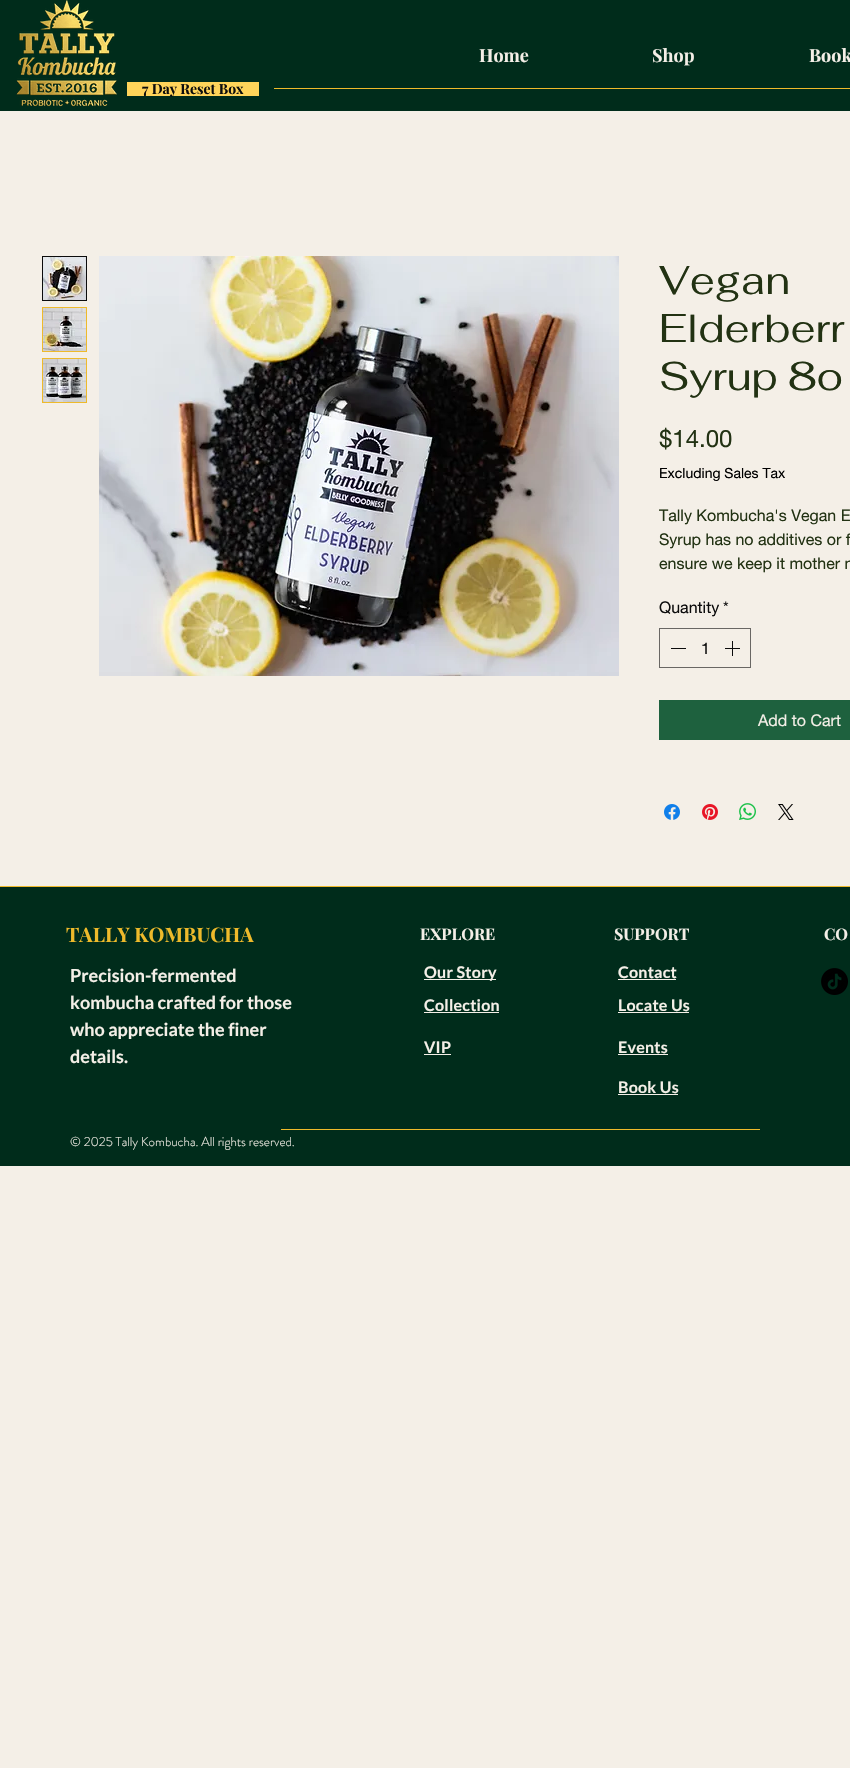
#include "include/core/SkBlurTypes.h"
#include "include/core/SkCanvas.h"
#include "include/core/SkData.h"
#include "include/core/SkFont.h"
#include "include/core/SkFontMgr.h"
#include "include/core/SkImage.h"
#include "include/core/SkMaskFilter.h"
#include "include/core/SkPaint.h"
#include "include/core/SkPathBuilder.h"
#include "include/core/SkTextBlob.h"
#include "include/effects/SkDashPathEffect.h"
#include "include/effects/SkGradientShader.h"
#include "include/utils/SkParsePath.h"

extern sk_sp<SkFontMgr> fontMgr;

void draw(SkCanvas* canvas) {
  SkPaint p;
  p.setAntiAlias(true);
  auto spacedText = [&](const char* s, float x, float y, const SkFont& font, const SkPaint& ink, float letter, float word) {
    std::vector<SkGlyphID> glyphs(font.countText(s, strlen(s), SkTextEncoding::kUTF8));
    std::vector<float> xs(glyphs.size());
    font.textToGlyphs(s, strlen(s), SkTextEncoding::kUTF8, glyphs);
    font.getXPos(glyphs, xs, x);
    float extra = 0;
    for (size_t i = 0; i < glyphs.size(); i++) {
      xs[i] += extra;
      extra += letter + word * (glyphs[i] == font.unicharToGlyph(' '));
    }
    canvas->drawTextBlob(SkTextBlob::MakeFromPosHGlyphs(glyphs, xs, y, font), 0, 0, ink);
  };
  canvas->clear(SkColorSetRGB(244, 239, 231));
  p.setColor(SkColorSetRGB(0, 44, 27));
  canvas->drawRect(SkRect::MakeLTRB(0, 0, 850, 111), p);
  canvas->drawImageRect(SkImages::DeferredFromEncodedData(SkData::MakeFromFileName("images/1.png")), SkRect::MakeLTRB(16, 0, 117, 107), SkSamplingOptions());
  p.setColor(SkColorSetRGB(255, 212, 90));
  canvas->drawRect(SkRect::MakeLTRB(127, 82, 259, 96), p);
  p.setColor(SkColorSetRGB(238, 186, 43));
  canvas->drawRect(SkRect::MakeLTRB(274, 88, 850, 89), p);
  p.setStyle(SkPaint::kStroke_Style);
  p.setStrokeWidth(1);
  p.setColor(SkColorSetRGB(12, 12, 12));
  canvas->drawRect(SkRect::MakeLTRB(42.5f, 256.5f, 86.5f, 300.5f), p);
  canvas->drawImageRect(SkImages::DeferredFromEncodedData(SkData::MakeFromFileName("images/2.png")), SkRect::MakeLTRB(43, 257, 86, 300), SkSamplingOptions());
  p.setColor(SkColorSetRGB(238, 186, 43));
  canvas->drawRect(SkRect::MakeLTRB(42.5f, 307.5f, 86.5f, 351.5f), p);
  canvas->drawImageRect(SkImages::DeferredFromEncodedData(SkData::MakeFromFileName("images/3.png")), SkRect::MakeLTRB(43, 308, 86, 351), SkSamplingOptions());
  canvas->drawRect(SkRect::MakeLTRB(42.5f, 358.5f, 86.5f, 402.5f), p);
  canvas->drawImageRect(SkImages::DeferredFromEncodedData(SkData::MakeFromFileName("images/4.png")), SkRect::MakeLTRB(43, 359, 86, 402), SkSamplingOptions());
  canvas->drawImageRect(SkImages::DeferredFromEncodedData(SkData::MakeFromFileName("images/5.png")), SkRect::MakeLTRB(99, 256, 619, 676), SkSamplingOptions());
  p.setColor(SkColorSetRGB(105, 103, 100));
  canvas->drawRect(SkRect::MakeLTRB(659.5f, 628.5f, 750.5f, 667.5f), p);
  p.setStyle(SkPaint::kFill_Style);
  p.setColor(SkColorSetRGB(12, 12, 12));
  canvas->drawRect(SkRect::MakeLTRB(671, 648, 686, 649), p);
  canvas->drawImageRect(SkImages::DeferredFromEncodedData(SkData::MakeFromFileName("images/6.png")), SkRect::MakeLTRB(725, 641, 740, 656), SkSamplingOptions());
  p.setColor(SkColorSetRGB(30, 97, 62));
  canvas->drawRect(SkRect::MakeLTRB(659, 700, 850, 740), p);
  canvas->drawImageRect(SkImages::DeferredFromEncodedData(SkData::MakeFromFileName("images/7.png")), SkRect::MakeLTRB(664, 804, 680, 820), SkSamplingOptions());
  canvas->drawImageRect(SkImages::DeferredFromEncodedData(SkData::MakeFromFileName("images/8.png")), SkRect::MakeLTRB(702, 804, 718, 820), SkSamplingOptions());
  canvas->drawImageRect(SkImages::DeferredFromEncodedData(SkData::MakeFromFileName("images/9.png")), SkRect::MakeLTRB(739, 803, 756, 820), SkSamplingOptions());
  canvas->drawImageRect(SkImages::DeferredFromEncodedData(SkData::MakeFromFileName("images/10.png")), SkRect::MakeLTRB(778, 804, 794, 820), SkSamplingOptions());
  p.setColor(SkColorSetRGB(238, 186, 43));
  canvas->drawRect(SkRect::MakeLTRB(0, 886, 850, 887), p);
  p.setColor(SkColorSetRGB(0, 44, 27));
  canvas->drawRect(SkRect::MakeLTRB(0, 887, 850, 1166), p);
  p.setColor(SkColorSetRGB(244, 239, 231));
  canvas->drawRect(SkRect::MakeLTRB(424, 979, 496, 980), p);
  canvas->drawRect(SkRect::MakeLTRB(618, 979, 676, 980), p);
  canvas->drawImageRect(SkImages::DeferredFromEncodedData(SkData::MakeFromFileName("images/11.png")), SkRect::MakeLTRB(821, 968, 848, 995), SkSamplingOptions());
  canvas->drawRect(SkRect::MakeLTRB(424, 1012, 499, 1013), p);
  canvas->drawRect(SkRect::MakeLTRB(618, 1012, 689, 1013), p);
  canvas->drawRect(SkRect::MakeLTRB(424, 1054, 451, 1055), p);
  canvas->drawRect(SkRect::MakeLTRB(618, 1054, 668, 1055), p);
  canvas->drawRect(SkRect::MakeLTRB(618, 1094, 678, 1095), p);
  p.setColor(SkColorSetRGB(238, 186, 43));
  canvas->drawRect(SkRect::MakeLTRB(281, 1129, 760, 1130), p);
  SkFont font1(fontMgr->matchFamilyStyle("Playfair Display", SkFontStyle::Bold()), 18);
  font1.setSubpixel(true);
  p.setColor(SkColorSetRGB(244, 239, 231));
  canvas->drawString("Home", 479, 62, font1, p);
  canvas->drawString("Shop", 652, 62, font1, p);
  canvas->drawString("Book", 809, 62, font1, p);
  SkFont font2(fontMgr->matchFamilyStyle("Playfair Display", SkFontStyle::Bold()), 14);
  font2.setSubpixel(true);
  p.setColor(SkColorSetRGB(12, 12, 12));
  canvas->drawString("7 Day Reset Box", 142, 94, font2, p);
  SkFont font3(fontMgr->matchFamilyStyle("Fahkwang", SkFontStyle::Normal()), 40);
  font3.setSubpixel(true);
  p.setColor(SkColorSetRGB(34, 50, 19));
  canvas->drawString("Vegan", 659, 294, font3, p);
  canvas->drawString("Elderberr", 659, 342, font3, p);
  canvas->drawString("Syrup 8o", 659, 390, font3, p);
  SkFont font4(fontMgr->matchFamilyStyle("helvetica neue", SkFontStyle::Normal()), 24);
  font4.setSubpixel(true);
  canvas->drawString("$14.00", 659, 447, font4, p);
  SkFont font5(fontMgr->matchFamilyStyle("helvetica neue", SkFontStyle::Normal()), 14);
  font5.setSubpixel(true);
  p.setColor(SK_ColorBLACK);
  canvas->drawString("Excluding Sales Tax", 659, 478, font5, p);
  SkFont font6(fontMgr->matchFamilyStyle("helvetica neue", SkFontStyle::Normal()), 16);
  font6.setSubpixel(true);
  p.setColor(SkColorSetRGB(34, 50, 19));
  canvas->drawString("Tally Kombucha's Vegan E", 659, 521, font6, p);
  canvas->drawString("Syrup has no additives or f", 659, 545, font6, p);
  canvas->drawString("ensure we keep it mother n", 659, 569, font6, p);
  p.setColor(SkColorSetRGB(12, 12, 12));
  canvas->drawString("Quantity", 659, 613, font6, p);
  canvas->drawString("*", 723, 613, font6, p);
  canvas->drawString("1", 701, 654, font6, p);
  p.setColor(SkColorSetRGB(244, 239, 231));
  canvas->drawString("Add to Cart", 758, 726, font6, p);
  SkFont font7(fontMgr->matchFamilyStyle("Playfair Display", SkFontStyle::Bold()), 20);
  font7.setSubpixel(true);
  p.setColor(SkColorSetRGB(238, 186, 43));
  canvas->drawString("TALLY KOMBUCHA", 66, 942, font7, p);
  SkFont font8(fontMgr->matchFamilyStyle("Playfair Display", SkFontStyle::Bold()), 16);
  font8.setSubpixel(true);
  p.setColor(SkColorSetRGB(244, 239, 231));
  canvas->drawString("EXPLORE", 420, 940, font8, p);
  canvas->drawString("SUPPORT", 614, 940, font8, p);
  canvas->drawString("CO", 824, 940, font8, p);
  SkFont font9(fontMgr->matchFamilyStyle("Lato", SkFontStyle::Bold()), 18);
  font9.setSubpixel(true);
  canvas->drawString("Precision-fermented", 70, 982, font9, p);
  canvas->drawString("kombucha crafted for those", 70, 1009, font9, p);
  canvas->drawString("who appreciate the finer", 70, 1036, font9, p);
  canvas->drawString("details.", 70, 1063, font9, p);
  SkFont font10(fontMgr->matchFamilyStyle("Lato", SkFontStyle::Bold()), 16);
  font10.setSubpixel(true);
  spacedText("Our Story", 424, 978, font10, p, 0.25f, 0);
  spacedText("Contact", 618, 978, font10, p, 0.25f, 0);
  spacedText("Collection", 424, 1011, font10, p, 0.25f, 0);
  spacedText("Locate Us", 618, 1011, font10, p, 0.25f, 0);
  spacedText("VIP", 424, 1053, font10, p, 0.25f, 0);
  spacedText("Events", 618, 1053, font10, p, 0.25f, 0);
  spacedText("Book Us", 618, 1093, font10, p, 0.25f, 0);
  SkFont font11(fontMgr->matchFamilyStyle("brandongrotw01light", SkFontStyle(300, SkFontStyle::kNormal_Width, SkFontStyle::kUpright_Slant)), 13);
  font11.setSubpixel(true);
  canvas->drawString("© 2025 Tally Kombucha. All rights reserved.", 70, 1146, font11, p);
}
